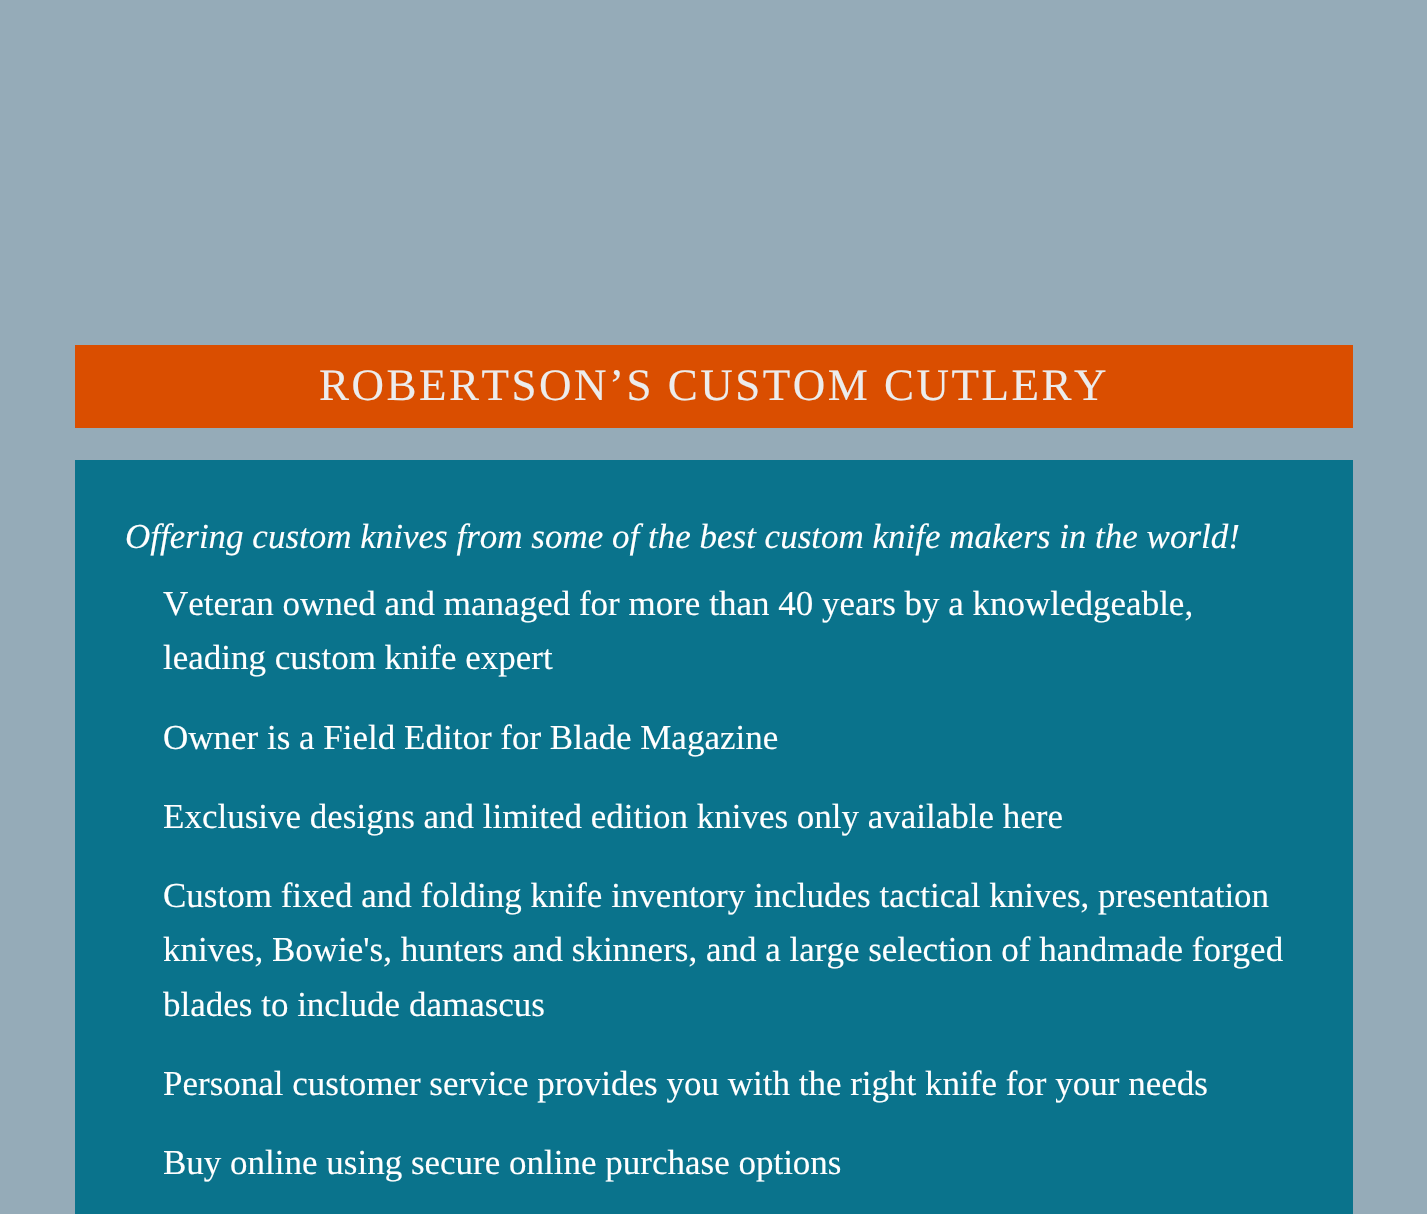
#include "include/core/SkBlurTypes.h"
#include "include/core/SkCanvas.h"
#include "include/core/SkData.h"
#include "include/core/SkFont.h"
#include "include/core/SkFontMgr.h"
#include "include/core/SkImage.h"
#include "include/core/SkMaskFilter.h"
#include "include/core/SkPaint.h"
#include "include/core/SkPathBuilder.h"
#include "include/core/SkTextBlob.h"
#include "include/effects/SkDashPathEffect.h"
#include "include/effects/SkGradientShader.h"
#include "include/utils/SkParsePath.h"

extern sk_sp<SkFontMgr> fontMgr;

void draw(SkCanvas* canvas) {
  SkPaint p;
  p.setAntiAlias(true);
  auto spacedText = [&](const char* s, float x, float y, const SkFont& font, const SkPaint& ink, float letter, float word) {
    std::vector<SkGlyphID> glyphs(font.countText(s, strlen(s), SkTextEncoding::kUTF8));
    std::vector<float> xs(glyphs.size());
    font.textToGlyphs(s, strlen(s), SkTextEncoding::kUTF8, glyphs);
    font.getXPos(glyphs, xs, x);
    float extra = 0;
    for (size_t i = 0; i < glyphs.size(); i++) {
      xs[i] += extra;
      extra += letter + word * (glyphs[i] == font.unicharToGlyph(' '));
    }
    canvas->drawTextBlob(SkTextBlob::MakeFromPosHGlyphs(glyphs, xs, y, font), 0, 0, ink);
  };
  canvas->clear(SkColorSetRGB(149, 171, 184));
  p.setColor(SkColorSetRGB(218, 78, 0));
  canvas->drawRect(SkRect::MakeLTRB(75, 345, 1353, 428), p);
  p.setColor(SkColorSetRGB(10, 115, 140));
  canvas->drawRect(SkRect::MakeLTRB(75, 460, 1353, 1214), p);
  SkFont font1(fontMgr->matchFamilyStyle("Liberation Serif", SkFontStyle::Normal()), 45);
  font1.setSubpixel(true);
  p.setColor(SkColorSetRGB(236, 236, 236));
  spacedText("ROBERTSON’S CUSTOM CUTLERY", 319, 400, font1, p, 2.5f, 0);
  SkFont font2(fontMgr->matchFamilyStyle("Liberation Serif", SkFontStyle::Italic()), 35);
  font2.setSubpixel(true);
  p.setColor(SK_ColorWHITE);
  canvas->drawString("Offering custom knives from some of the best custom knife makers in the world!", 125, 548, font2, p);
  SkFont font3(fontMgr->matchFamilyStyle("Liberation Serif", SkFontStyle::Normal()), 35);
  font3.setSubpixel(true);
  canvas->drawString("Veteran owned and managed for more than 40 years by a knowledgeable,", 163, 615, font3, p);
  canvas->drawString("leading custom knife expert", 163, 669, font3, p);
  canvas->drawString("Owner is a Field Editor for Blade Magazine", 163, 749, font3, p);
  canvas->drawString("Exclusive designs and limited edition knives only available here", 163, 828, font3, p);
  canvas->drawString("Custom fixed and folding knife inventory includes tactical knives, presentation", 163, 907, font3, p);
  canvas->drawString("knives, Bowie's, hunters and skinners, and a large selection of handmade forged", 163, 961, font3, p);
  canvas->drawString("blades to include damascus", 163, 1016, font3, p);
  canvas->drawString("Personal customer service provides you with the right knife for your needs", 163, 1095, font3, p);
  canvas->drawString("Buy online using secure online purchase options", 163, 1174, font3, p);
}
